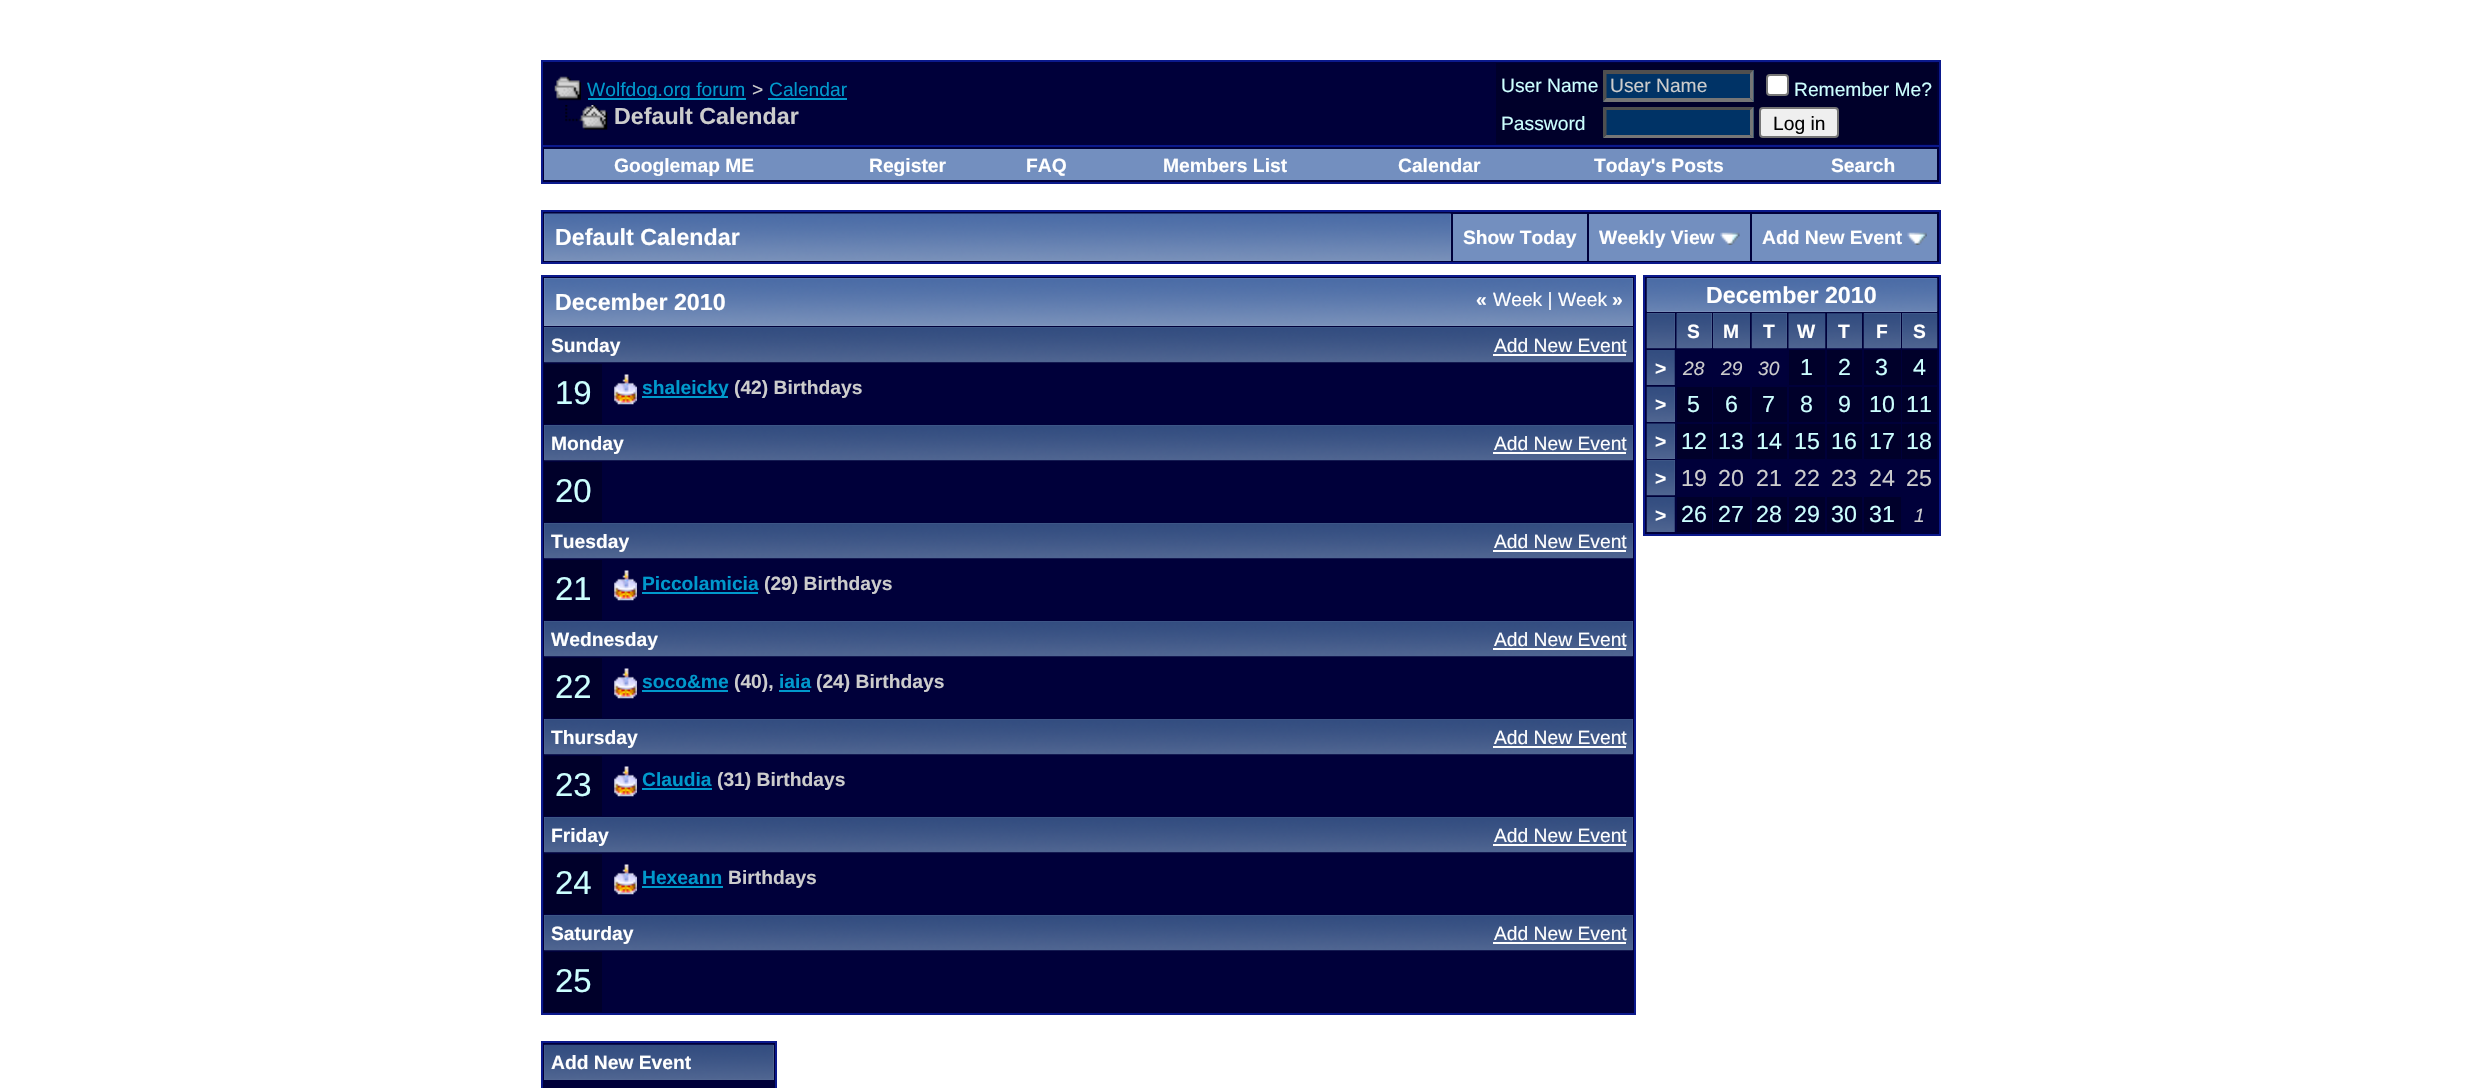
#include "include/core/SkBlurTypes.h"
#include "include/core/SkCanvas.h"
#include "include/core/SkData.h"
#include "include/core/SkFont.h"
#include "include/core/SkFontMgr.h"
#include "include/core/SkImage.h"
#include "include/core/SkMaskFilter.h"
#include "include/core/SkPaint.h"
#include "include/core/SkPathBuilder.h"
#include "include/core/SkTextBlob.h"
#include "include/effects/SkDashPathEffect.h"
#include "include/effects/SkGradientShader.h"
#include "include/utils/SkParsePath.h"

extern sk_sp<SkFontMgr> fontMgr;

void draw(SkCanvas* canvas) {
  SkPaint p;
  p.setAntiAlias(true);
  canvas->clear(SK_ColorWHITE);
  p.setColor(SkColorSetRGB(0, 0, 58));
  canvas->drawRect(SkRect::MakeLTRB(542, 61, 1940, 146), p);
  p.setStyle(SkPaint::kStroke_Style);
  p.setStrokeWidth(2);
  p.setColor(SkColorSetRGB(11, 25, 140));
  canvas->drawRect(SkRect::MakeLTRB(542, 61, 1940, 146), p);
  canvas->drawImageRect(SkImages::DeferredFromEncodedData(SkData::MakeFromFileName("images/1.png")), SkRect::MakeLTRB(554, 76, 581, 101), SkSamplingOptions());
  p.setStyle(SkPaint::kFill_Style);
  p.setColor(SkColorSetRGB(0, 153, 204));
  canvas->drawRect(SkRect::MakeLTRB(588, 98, 746, 100), p);
  canvas->drawRect(SkRect::MakeLTRB(768, 98, 847, 100), p);
  canvas->drawImageRect(SkImages::DeferredFromEncodedData(SkData::MakeFromFileName("images/2.png")), SkRect::MakeLTRB(565, 105, 608, 130), SkSamplingOptions());
  p.setColor(SkColorSetRGB(0, 0, 42));
  canvas->drawRect(SkRect::MakeLTRB(1496, 63, 1937, 144), p);
  p.setColor(SkColorSetRGB(0, 51, 102));
  canvas->drawRect(SkRect::MakeLTRB(1603, 70, 1754, 102), p);
  p.setColor(SkColorSetRGB(79, 79, 79));
  canvas->drawPath(SkPathBuilder().moveTo(1603, 70).lineTo(1754, 70).lineTo(1750, 74).lineTo(1606, 74).close().detach(), p);
  p.setColor(SkColorSetRGB(118, 118, 118));
  canvas->drawPath(SkPathBuilder().moveTo(1753.5f, 70).lineTo(1753.5f, 101.5f).lineTo(1750, 98).lineTo(1750, 73.5f).close().detach(), p);
  canvas->drawPath(SkPathBuilder().moveTo(1754, 102).lineTo(1603, 102).lineTo(1606, 98).lineTo(1750, 98).close().detach(), p);
  p.setColor(SkColorSetRGB(79, 79, 79));
  canvas->drawPath(SkPathBuilder().moveTo(1603, 101.5f).lineTo(1603, 70).lineTo(1606.5f, 73.5f).lineTo(1606.5f, 98).close().detach(), p);
  p.setColor(SK_ColorWHITE);
  canvas->drawRoundRect(SkRect::MakeLTRB(1767, 75, 1788, 95), 3, 3, p);
  p.setStyle(SkPaint::kStroke_Style);
  p.setColor(SkColorSetRGB(118, 118, 118));
  canvas->drawRoundRect(SkRect::MakeLTRB(1767, 75, 1788, 95), 3, 3, p);
  p.setStyle(SkPaint::kFill_Style);
  p.setColor(SkColorSetRGB(0, 51, 102));
  canvas->drawRect(SkRect::MakeLTRB(1603, 107, 1754, 138), p);
  p.setColor(SkColorSetRGB(79, 79, 79));
  canvas->drawPath(SkPathBuilder().moveTo(1603, 107).lineTo(1754, 107).lineTo(1750, 110).lineTo(1606, 110).close().detach(), p);
  p.setColor(SkColorSetRGB(118, 118, 118));
  canvas->drawPath(SkPathBuilder().moveTo(1753.5f, 107).lineTo(1753.5f, 138).lineTo(1750, 135).lineTo(1750, 110).close().detach(), p);
  canvas->drawPath(SkPathBuilder().moveTo(1754, 138).lineTo(1603, 138).lineTo(1606, 135).lineTo(1750, 135).close().detach(), p);
  p.setColor(SkColorSetRGB(79, 79, 79));
  canvas->drawPath(SkPathBuilder().moveTo(1603, 138).lineTo(1603, 107).lineTo(1606.5f, 110).lineTo(1606.5f, 135).close().detach(), p);
  p.setColor(SkColorSetRGB(239, 239, 239));
  canvas->drawRoundRect(SkRect::MakeLTRB(1760, 108, 1838, 137), 3, 3, p);
  p.setStyle(SkPaint::kStroke_Style);
  p.setColor(SkColorSetRGB(118, 118, 118));
  canvas->drawRoundRect(SkRect::MakeLTRB(1760, 108, 1838, 137), 3, 3, p);
  p.setStyle(SkPaint::kFill_Style);
  p.setColor(SkColorSetRGB(0, 0, 58));
  canvas->drawRect(SkRect::MakeLTRB(543, 147, 1939, 182), p);
  p.setColor(SkColorSetRGB(11, 25, 140));
  canvas->drawRect(SkRect::MakeLTRB(1939, 147, 1941, 184), p);
  canvas->drawRect(SkRect::MakeLTRB(541, 182, 1941, 184), p);
  canvas->drawRect(SkRect::MakeLTRB(541, 147, 543, 184), p);
  p.setColor(SkColorSetRGB(115, 143, 191));
  canvas->drawRect(SkRect::MakeLTRB(544, 149, 1937, 180), p);
  p.setColor(SkColorSetRGB(0, 0, 58));
  canvas->drawRect(SkRect::MakeLTRB(542, 211, 1940, 263), p);
  p.setStyle(SkPaint::kStroke_Style);
  p.setColor(SkColorSetRGB(11, 25, 140));
  canvas->drawRect(SkRect::MakeLTRB(542, 211, 1940, 263), p);
  p.setStyle(SkPaint::kFill_Style);
  p.setColor(SkColorSetRGB(134, 155, 191));
  canvas->drawRect(SkRect::MakeLTRB(544, 214, 1451, 261), p);
  canvas->drawImageRect(SkImages::DeferredFromEncodedData(SkData::MakeFromFileName("images/3.png")), SkRect::MakeLTRB(544, 213, 1451, 261), SkSamplingOptions());
  p.setColor(SkColorSetRGB(115, 143, 191));
  canvas->drawRect(SkRect::MakeLTRB(1453, 214, 1587, 261), p);
  canvas->drawRect(SkRect::MakeLTRB(1589, 214, 1750, 261), p);
  canvas->drawImageRect(SkImages::DeferredFromEncodedData(SkData::MakeFromFileName("images/4.png")), SkRect::MakeLTRB(1720, 232, 1740, 245), SkSamplingOptions());
  canvas->drawRect(SkRect::MakeLTRB(1752, 214, 1937, 261), p);
  canvas->drawImageRect(SkImages::DeferredFromEncodedData(SkData::MakeFromFileName("images/5.png")), SkRect::MakeLTRB(1907, 232, 1927, 245), SkSamplingOptions());
  p.setColor(SkColorSetRGB(0, 0, 58));
  canvas->drawRect(SkRect::MakeLTRB(542, 276, 1635, 1014), p);
  p.setStyle(SkPaint::kStroke_Style);
  p.setColor(SkColorSetRGB(11, 25, 140));
  canvas->drawRect(SkRect::MakeLTRB(542, 276, 1635, 1014), p);
  p.setStyle(SkPaint::kFill_Style);
  p.setColor(SkColorSetRGB(134, 155, 191));
  canvas->drawRect(SkRect::MakeLTRB(544, 278, 1633, 326), p);
  canvas->drawImageRect(SkImages::DeferredFromEncodedData(SkData::MakeFromFileName("images/6.png")), SkRect::MakeLTRB(544, 278, 1633, 326), SkSamplingOptions());
  p.setColor(SkColorSetRGB(92, 112, 153));
  canvas->drawRect(SkRect::MakeLTRB(544, 327, 1633, 362), p);
  canvas->drawImageRect(SkImages::DeferredFromEncodedData(SkData::MakeFromFileName("images/7.png")), SkRect::MakeLTRB(544, 327, 1633, 363), SkSamplingOptions());
  p.setColor(SK_ColorWHITE);
  canvas->drawRect(SkRect::MakeLTRB(1493, 354, 1626, 356), p);
  p.setColor(SkColorSetRGB(0, 0, 42));
  canvas->drawRect(SkRect::MakeLTRB(544, 364, 602, 424), p);
  canvas->drawImageRect(SkImages::DeferredFromEncodedData(SkData::MakeFromFileName("images/8.png")), SkRect::MakeLTRB(614, 374, 637, 405), SkSamplingOptions());
  p.setColor(SkColorSetRGB(0, 153, 204));
  canvas->drawRect(SkRect::MakeLTRB(642, 396, 728, 398), p);
  p.setColor(SkColorSetRGB(92, 112, 153));
  canvas->drawRect(SkRect::MakeLTRB(544, 425, 1633, 460), p);
  canvas->drawImageRect(SkImages::DeferredFromEncodedData(SkData::MakeFromFileName("images/9.png")), SkRect::MakeLTRB(544, 425, 1633, 461), SkSamplingOptions());
  p.setColor(SK_ColorWHITE);
  canvas->drawRect(SkRect::MakeLTRB(1493, 452, 1626, 454), p);
  p.setColor(SkColorSetRGB(0, 0, 42));
  canvas->drawRect(SkRect::MakeLTRB(544, 462, 602, 522), p);
  p.setColor(SkColorSetRGB(92, 112, 153));
  canvas->drawRect(SkRect::MakeLTRB(544, 523, 1633, 558), p);
  canvas->drawImageRect(SkImages::DeferredFromEncodedData(SkData::MakeFromFileName("images/10.png")), SkRect::MakeLTRB(544, 523, 1633, 559), SkSamplingOptions());
  p.setColor(SK_ColorWHITE);
  canvas->drawRect(SkRect::MakeLTRB(1493, 550, 1626, 552), p);
  p.setColor(SkColorSetRGB(0, 0, 42));
  canvas->drawRect(SkRect::MakeLTRB(544, 560, 602, 620), p);
  canvas->drawImageRect(SkImages::DeferredFromEncodedData(SkData::MakeFromFileName("images/8.png")), SkRect::MakeLTRB(614, 570, 637, 601), SkSamplingOptions());
  p.setColor(SkColorSetRGB(0, 153, 204));
  canvas->drawRect(SkRect::MakeLTRB(642, 592, 758, 594), p);
  p.setColor(SkColorSetRGB(92, 112, 153));
  canvas->drawRect(SkRect::MakeLTRB(544, 621, 1633, 656), p);
  canvas->drawImageRect(SkImages::DeferredFromEncodedData(SkData::MakeFromFileName("images/11.png")), SkRect::MakeLTRB(544, 621, 1633, 657), SkSamplingOptions());
  p.setColor(SK_ColorWHITE);
  canvas->drawRect(SkRect::MakeLTRB(1493, 648, 1626, 650), p);
  p.setColor(SkColorSetRGB(0, 0, 42));
  canvas->drawRect(SkRect::MakeLTRB(544, 658, 602, 718), p);
  canvas->drawImageRect(SkImages::DeferredFromEncodedData(SkData::MakeFromFileName("images/8.png")), SkRect::MakeLTRB(614, 668, 637, 699), SkSamplingOptions());
  p.setColor(SkColorSetRGB(0, 153, 204));
  canvas->drawRect(SkRect::MakeLTRB(642, 690, 728, 692), p);
  canvas->drawRect(SkRect::MakeLTRB(779, 690, 810, 692), p);
  p.setColor(SkColorSetRGB(92, 112, 153));
  canvas->drawRect(SkRect::MakeLTRB(544, 719, 1633, 754), p);
  canvas->drawImageRect(SkImages::DeferredFromEncodedData(SkData::MakeFromFileName("images/12.png")), SkRect::MakeLTRB(544, 719, 1633, 755), SkSamplingOptions());
  p.setColor(SK_ColorWHITE);
  canvas->drawRect(SkRect::MakeLTRB(1493, 746, 1626, 748), p);
  p.setColor(SkColorSetRGB(0, 0, 42));
  canvas->drawRect(SkRect::MakeLTRB(544, 756, 602, 816), p);
  canvas->drawImageRect(SkImages::DeferredFromEncodedData(SkData::MakeFromFileName("images/8.png")), SkRect::MakeLTRB(614, 766, 637, 797), SkSamplingOptions());
  p.setColor(SkColorSetRGB(0, 153, 204));
  canvas->drawRect(SkRect::MakeLTRB(642, 788, 712, 790), p);
  p.setColor(SkColorSetRGB(92, 112, 153));
  canvas->drawRect(SkRect::MakeLTRB(544, 817, 1633, 852), p);
  canvas->drawImageRect(SkImages::DeferredFromEncodedData(SkData::MakeFromFileName("images/13.png")), SkRect::MakeLTRB(544, 817, 1633, 853), SkSamplingOptions());
  p.setColor(SK_ColorWHITE);
  canvas->drawRect(SkRect::MakeLTRB(1493, 844, 1626, 846), p);
  p.setColor(SkColorSetRGB(0, 0, 42));
  canvas->drawRect(SkRect::MakeLTRB(544, 854, 602, 914), p);
  canvas->drawImageRect(SkImages::DeferredFromEncodedData(SkData::MakeFromFileName("images/8.png")), SkRect::MakeLTRB(614, 864, 637, 895), SkSamplingOptions());
  p.setColor(SkColorSetRGB(0, 153, 204));
  canvas->drawRect(SkRect::MakeLTRB(642, 886, 723, 888), p);
  p.setColor(SkColorSetRGB(92, 112, 153));
  canvas->drawRect(SkRect::MakeLTRB(544, 915, 1633, 950), p);
  canvas->drawImageRect(SkImages::DeferredFromEncodedData(SkData::MakeFromFileName("images/14.png")), SkRect::MakeLTRB(544, 915, 1633, 951), SkSamplingOptions());
  p.setColor(SK_ColorWHITE);
  canvas->drawRect(SkRect::MakeLTRB(1493, 942, 1626, 944), p);
  p.setColor(SkColorSetRGB(0, 0, 42));
  canvas->drawRect(SkRect::MakeLTRB(544, 952, 602, 1012), p);
  p.setColor(SkColorSetRGB(0, 0, 58));
  canvas->drawRect(SkRect::MakeLTRB(1644, 276, 1940, 535), p);
  p.setStyle(SkPaint::kStroke_Style);
  p.setColor(SkColorSetRGB(11, 25, 140));
  canvas->drawRect(SkRect::MakeLTRB(1644, 276, 1940, 535), p);
  p.setStyle(SkPaint::kFill_Style);
  p.setColor(SkColorSetRGB(134, 155, 191));
  canvas->drawRect(SkRect::MakeLTRB(1647, 278, 1937, 312), p);
  canvas->drawImageRect(SkImages::DeferredFromEncodedData(SkData::MakeFromFileName("images/15.png")), SkRect::MakeLTRB(1646, 278, 1938, 312), SkSamplingOptions());
  p.setColor(SkColorSetRGB(92, 112, 153));
  canvas->drawRect(SkRect::MakeLTRB(1647, 313, 1675, 348), p);
  canvas->drawImageRect(SkImages::DeferredFromEncodedData(SkData::MakeFromFileName("images/16.png")), SkRect::MakeLTRB(1646, 313, 1675, 349), SkSamplingOptions());
  canvas->drawRect(SkRect::MakeLTRB(1677, 313, 1712, 348), p);
  canvas->drawImageRect(SkImages::DeferredFromEncodedData(SkData::MakeFromFileName("images/17.png")), SkRect::MakeLTRB(1676, 313, 1712, 349), SkSamplingOptions());
  canvas->drawRect(SkRect::MakeLTRB(1713, 313, 1750, 348), p);
  canvas->drawImageRect(SkImages::DeferredFromEncodedData(SkData::MakeFromFileName("images/18.png")), SkRect::MakeLTRB(1713, 313, 1750, 349), SkSamplingOptions());
  canvas->drawRect(SkRect::MakeLTRB(1752, 313, 1787, 348), p);
  canvas->drawImageRect(SkImages::DeferredFromEncodedData(SkData::MakeFromFileName("images/19.png")), SkRect::MakeLTRB(1751, 313, 1787, 349), SkSamplingOptions());
  canvas->drawImageRect(SkImages::DeferredFromEncodedData(SkData::MakeFromFileName("images/20.png")), SkRect::MakeLTRB(1788, 313, 1826, 349), SkSamplingOptions());
  canvas->drawImageRect(SkImages::DeferredFromEncodedData(SkData::MakeFromFileName("images/21.png")), SkRect::MakeLTRB(1827, 313, 1862, 349), SkSamplingOptions());
  canvas->drawRect(SkRect::MakeLTRB(1864, 313, 1901, 348), p);
  canvas->drawImageRect(SkImages::DeferredFromEncodedData(SkData::MakeFromFileName("images/22.png")), SkRect::MakeLTRB(1863, 313, 1901, 349), SkSamplingOptions());
  canvas->drawRect(SkRect::MakeLTRB(1902, 313, 1937, 348), p);
  canvas->drawImageRect(SkImages::DeferredFromEncodedData(SkData::MakeFromFileName("images/23.png")), SkRect::MakeLTRB(1902, 313, 1938, 349), SkSamplingOptions());
  canvas->drawImageRect(SkImages::DeferredFromEncodedData(SkData::MakeFromFileName("images/24.png")), SkRect::MakeLTRB(1646, 350, 1675, 385), SkSamplingOptions());
  p.setColor(SkColorSetRGB(0, 0, 42));
  canvas->drawRect(SkRect::MakeLTRB(1789, 350, 1825, 385), p);
  canvas->drawRect(SkRect::MakeLTRB(1827, 350, 1862, 385), p);
  canvas->drawRect(SkRect::MakeLTRB(1864, 350, 1901, 385), p);
  canvas->drawRect(SkRect::MakeLTRB(1902, 350, 1937, 385), p);
  p.setColor(SkColorSetRGB(92, 112, 153));
  canvas->drawRect(SkRect::MakeLTRB(1647, 387, 1675, 422), p);
  canvas->drawImageRect(SkImages::DeferredFromEncodedData(SkData::MakeFromFileName("images/25.png")), SkRect::MakeLTRB(1646, 386, 1675, 422), SkSamplingOptions());
  p.setColor(SkColorSetRGB(0, 0, 42));
  canvas->drawRect(SkRect::MakeLTRB(1677, 387, 1712, 422), p);
  canvas->drawRect(SkRect::MakeLTRB(1713, 387, 1750, 422), p);
  canvas->drawRect(SkRect::MakeLTRB(1752, 387, 1787, 422), p);
  canvas->drawRect(SkRect::MakeLTRB(1789, 387, 1825, 422), p);
  canvas->drawRect(SkRect::MakeLTRB(1827, 387, 1862, 422), p);
  canvas->drawRect(SkRect::MakeLTRB(1864, 387, 1901, 422), p);
  canvas->drawRect(SkRect::MakeLTRB(1902, 387, 1937, 422), p);
  p.setColor(SkColorSetRGB(92, 112, 153));
  canvas->drawRect(SkRect::MakeLTRB(1647, 424, 1675, 459), p);
  canvas->drawImageRect(SkImages::DeferredFromEncodedData(SkData::MakeFromFileName("images/26.png")), SkRect::MakeLTRB(1646, 423, 1675, 459), SkSamplingOptions());
  p.setColor(SkColorSetRGB(0, 0, 42));
  canvas->drawRect(SkRect::MakeLTRB(1677, 424, 1712, 459), p);
  canvas->drawRect(SkRect::MakeLTRB(1713, 424, 1750, 459), p);
  canvas->drawRect(SkRect::MakeLTRB(1752, 424, 1787, 459), p);
  canvas->drawRect(SkRect::MakeLTRB(1789, 424, 1825, 459), p);
  canvas->drawRect(SkRect::MakeLTRB(1827, 424, 1862, 459), p);
  canvas->drawRect(SkRect::MakeLTRB(1864, 424, 1901, 459), p);
  canvas->drawRect(SkRect::MakeLTRB(1902, 424, 1937, 459), p);
  p.setColor(SkColorSetRGB(92, 112, 153));
  canvas->drawRect(SkRect::MakeLTRB(1647, 460, 1675, 495), p);
  canvas->drawImageRect(SkImages::DeferredFromEncodedData(SkData::MakeFromFileName("images/16.png")), SkRect::MakeLTRB(1646, 460, 1675, 496), SkSamplingOptions());
  canvas->drawImageRect(SkImages::DeferredFromEncodedData(SkData::MakeFromFileName("images/24.png")), SkRect::MakeLTRB(1646, 497, 1675, 532), SkSamplingOptions());
  p.setColor(SkColorSetRGB(0, 0, 42));
  canvas->drawRect(SkRect::MakeLTRB(1677, 497, 1712, 532), p);
  canvas->drawRect(SkRect::MakeLTRB(1713, 497, 1750, 532), p);
  canvas->drawRect(SkRect::MakeLTRB(1752, 497, 1787, 532), p);
  canvas->drawRect(SkRect::MakeLTRB(1789, 497, 1825, 532), p);
  canvas->drawRect(SkRect::MakeLTRB(1827, 497, 1862, 532), p);
  canvas->drawRect(SkRect::MakeLTRB(1864, 497, 1901, 532), p);
  p.setColor(SkColorSetRGB(0, 0, 58));
  canvas->drawRect(SkRect::MakeLTRB(542, 1042, 776, 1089), p);
  p.setStyle(SkPaint::kStroke_Style);
  p.setColor(SkColorSetRGB(11, 25, 140));
  canvas->drawRect(SkRect::MakeLTRB(542, 1042, 776, 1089), p);
  p.setStyle(SkPaint::kFill_Style);
  p.setColor(SkColorSetRGB(92, 112, 153));
  canvas->drawRect(SkRect::MakeLTRB(544, 1045, 774, 1080), p);
  canvas->drawImageRect(SkImages::DeferredFromEncodedData(SkData::MakeFromFileName("images/27.png")), SkRect::MakeLTRB(544, 1044, 774, 1080), SkSamplingOptions());
  SkFont font1(fontMgr->matchFamilyStyle("Liberation Sans", SkFontStyle::Normal()), 19.25f);
  font1.setSubpixel(true);
  p.setColor(SkColorSetRGB(0, 153, 204));
  canvas->drawString("Wolfdog.org forum", 587, 96, font1, p);
  p.setColor(SkColorSetRGB(204, 204, 204));
  canvas->drawString(">", 752, 96, font1, p);
  p.setColor(SkColorSetRGB(0, 153, 204));
  canvas->drawString("Calendar", 769, 96, font1, p);
  SkFont font2(fontMgr->matchFamilyStyle("Liberation Sans", SkFontStyle::Bold()), 23.25f);
  font2.setSubpixel(true);
  p.setColor(SkColorSetRGB(204, 204, 204));
  canvas->drawString("Default Calendar", 614, 124, font2, p);
  p.setColor(SkColorSetRGB(204, 255, 255));
  canvas->drawString("User Name", 1501, 92, font1, p);
  p.setColor(SkColorSetRGB(204, 204, 204));
  canvas->drawString("User Name", 1610, 92, font1, p);
  p.setColor(SkColorSetRGB(204, 255, 255));
  canvas->drawString("Remember Me?", 1794, 96, font1, p);
  canvas->drawString("Password", 1501, 130, font1, p);
  p.setColor(SK_ColorBLACK);
  canvas->drawString("Log in", 1773, 130, font1, p);
  SkFont font3(fontMgr->matchFamilyStyle("Liberation Sans", SkFontStyle::Bold()), 19.25f);
  font3.setSubpixel(true);
  p.setColor(SK_ColorWHITE);
  canvas->drawString("Googlemap ME", 614, 172, font3, p);
  canvas->drawString("Register", 869, 172, font3, p);
  canvas->drawString("FAQ", 1026, 172, font3, p);
  canvas->drawString("Members List", 1163, 172, font3, p);
  canvas->drawString("Calendar", 1398, 172, font3, p);
  canvas->drawString("Today's Posts", 1594, 172, font3, p);
  canvas->drawString("Search", 1831, 172, font3, p);
  canvas->drawString("Default Calendar", 555, 245, font2, p);
  canvas->drawString("Show Today", 1463, 244, font3, p);
  canvas->drawString("Weekly View", 1599, 244, font3, p);
  canvas->drawString("Add New Event", 1762, 244, font3, p);
  canvas->drawString("December 2010", 555, 310, font2, p);
  canvas->drawString("«", 1476, 306, font3, p);
  canvas->drawString("Week | Week", 1493, 306, font1, p);
  canvas->drawString("»", 1612, 306, font3, p);
  canvas->drawString("Sunday", 551, 352, font3, p);
  canvas->drawString("Add New Event", 1494, 352, font1, p);
  SkFont font4(fontMgr->matchFamilyStyle("Liberation Sans", SkFontStyle::Normal()), 33);
  font4.setSubpixel(true);
  p.setColor(SkColorSetRGB(204, 255, 255));
  canvas->drawString("19", 555, 404, font4, p);
  p.setColor(SkColorSetRGB(0, 153, 204));
  canvas->drawString("shaleicky", 642, 394, font3, p);
  p.setColor(SkColorSetRGB(204, 204, 204));
  canvas->drawString("(42) Birthdays", 734, 394, font3, p);
  p.setColor(SK_ColorWHITE);
  canvas->drawString("Monday", 551, 450, font3, p);
  canvas->drawString("Add New Event", 1494, 450, font1, p);
  p.setColor(SkColorSetRGB(204, 255, 255));
  canvas->drawString("20", 555, 502, font4, p);
  p.setColor(SK_ColorWHITE);
  canvas->drawString("Tuesday", 551, 548, font3, p);
  canvas->drawString("Add New Event", 1494, 548, font1, p);
  p.setColor(SkColorSetRGB(204, 255, 255));
  canvas->drawString("21", 555, 600, font4, p);
  p.setColor(SkColorSetRGB(0, 153, 204));
  canvas->drawString("Piccolamicia", 642, 590, font3, p);
  p.setColor(SkColorSetRGB(204, 204, 204));
  canvas->drawString("(29) Birthdays", 764, 590, font3, p);
  p.setColor(SK_ColorWHITE);
  canvas->drawString("Wednesday", 551, 646, font3, p);
  canvas->drawString("Add New Event", 1494, 646, font1, p);
  p.setColor(SkColorSetRGB(204, 255, 255));
  canvas->drawString("22", 555, 698, font4, p);
  p.setColor(SkColorSetRGB(0, 153, 204));
  canvas->drawString("soco&me", 642, 688, font3, p);
  p.setColor(SkColorSetRGB(204, 204, 204));
  canvas->drawString("(40),", 734, 688, font3, p);
  p.setColor(SkColorSetRGB(0, 153, 204));
  canvas->drawString("iaia", 779, 688, font3, p);
  p.setColor(SkColorSetRGB(204, 204, 204));
  canvas->drawString("(24) Birthdays", 816, 688, font3, p);
  p.setColor(SK_ColorWHITE);
  canvas->drawString("Thursday", 551, 744, font3, p);
  canvas->drawString("Add New Event", 1494, 744, font1, p);
  p.setColor(SkColorSetRGB(204, 255, 255));
  canvas->drawString("23", 555, 796, font4, p);
  p.setColor(SkColorSetRGB(0, 153, 204));
  canvas->drawString("Claudia", 642, 786, font3, p);
  p.setColor(SkColorSetRGB(204, 204, 204));
  canvas->drawString("(31) Birthdays", 717, 786, font3, p);
  p.setColor(SK_ColorWHITE);
  canvas->drawString("Friday", 551, 842, font3, p);
  canvas->drawString("Add New Event", 1494, 842, font1, p);
  p.setColor(SkColorSetRGB(204, 255, 255));
  canvas->drawString("24", 555, 894, font4, p);
  p.setColor(SkColorSetRGB(0, 153, 204));
  canvas->drawString("Hexeann", 642, 884, font3, p);
  p.setColor(SkColorSetRGB(204, 204, 204));
  canvas->drawString("Birthdays", 728, 884, font3, p);
  p.setColor(SK_ColorWHITE);
  canvas->drawString("Saturday", 551, 940, font3, p);
  canvas->drawString("Add New Event", 1494, 940, font1, p);
  p.setColor(SkColorSetRGB(204, 255, 255));
  canvas->drawString("25", 555, 992, font4, p);
  p.setColor(SK_ColorWHITE);
  canvas->drawString("December 2010", 1706, 303, font2, p);
  canvas->drawString("S", 1687, 338, font3, p);
  canvas->drawString("M", 1723, 338, font3, p);
  canvas->drawString("T", 1763, 338, font3, p);
  canvas->drawString("W", 1797, 338, font3, p);
  canvas->drawString("T", 1838, 338, font3, p);
  canvas->drawString("F", 1876, 338, font3, p);
  canvas->drawString("S", 1913, 338, font3, p);
  canvas->drawString(">", 1655, 375, font3, p);
  SkFont font5(fontMgr->matchFamilyStyle("Liberation Sans", SkFontStyle::Italic()), 19.25f);
  font5.setSubpixel(true);
  p.setColor(SkColorSetRGB(204, 204, 204));
  canvas->drawString("28", 1683, 375, font5, p);
  canvas->drawString("29", 1721, 375, font5, p);
  canvas->drawString("30", 1758, 375, font5, p);
  SkFont font6(fontMgr->matchFamilyStyle("Liberation Sans", SkFontStyle::Normal()), 23.25f);
  font6.setSubpixel(true);
  p.setColor(SkColorSetRGB(204, 255, 255));
  canvas->drawString("1", 1800, 375, font6, p);
  canvas->drawString("2", 1838, 375, font6, p);
  canvas->drawString("3", 1875, 375, font6, p);
  canvas->drawString("4", 1913, 375, font6, p);
  p.setColor(SK_ColorWHITE);
  canvas->drawString(">", 1655, 411, font3, p);
  p.setColor(SkColorSetRGB(204, 255, 255));
  canvas->drawString("5", 1687, 412, font6, p);
  canvas->drawString("6", 1725, 412, font6, p);
  canvas->drawString("7", 1762, 412, font6, p);
  canvas->drawString("8", 1800, 412, font6, p);
  canvas->drawString("9", 1838, 412, font6, p);
  canvas->drawString("10", 1869, 412, font6, p);
  canvas->drawString("11", 1906, 412, font6, p);
  p.setColor(SK_ColorWHITE);
  canvas->drawString(">", 1655, 448, font3, p);
  p.setColor(SkColorSetRGB(204, 255, 255));
  canvas->drawString("12", 1681, 449, font6, p);
  canvas->drawString("13", 1718, 449, font6, p);
  canvas->drawString("14", 1756, 449, font6, p);
  canvas->drawString("15", 1794, 449, font6, p);
  canvas->drawString("16", 1831, 449, font6, p);
  canvas->drawString("17", 1869, 449, font6, p);
  canvas->drawString("18", 1906, 449, font6, p);
  p.setColor(SK_ColorWHITE);
  canvas->drawString(">", 1655, 485, font3, p);
  p.setColor(SkColorSetRGB(204, 204, 204));
  canvas->drawString("19", 1681, 486, font6, p);
  canvas->drawString("20", 1718, 486, font6, p);
  canvas->drawString("21", 1756, 486, font6, p);
  canvas->drawString("22", 1794, 486, font6, p);
  canvas->drawString("23", 1831, 486, font6, p);
  canvas->drawString("24", 1869, 486, font6, p);
  canvas->drawString("25", 1906, 486, font6, p);
  p.setColor(SK_ColorWHITE);
  canvas->drawString(">", 1655, 522, font3, p);
  p.setColor(SkColorSetRGB(204, 255, 255));
  canvas->drawString("26", 1681, 522, font6, p);
  canvas->drawString("27", 1718, 522, font6, p);
  canvas->drawString("28", 1756, 522, font6, p);
  canvas->drawString("29", 1794, 522, font6, p);
  canvas->drawString("30", 1831, 522, font6, p);
  canvas->drawString("31", 1869, 522, font6, p);
  p.setColor(SkColorSetRGB(204, 204, 204));
  canvas->drawString("1", 1914, 522, font5, p);
  p.setColor(SK_ColorWHITE);
  canvas->drawString("Add New Event", 551, 1069, font3, p);
}
